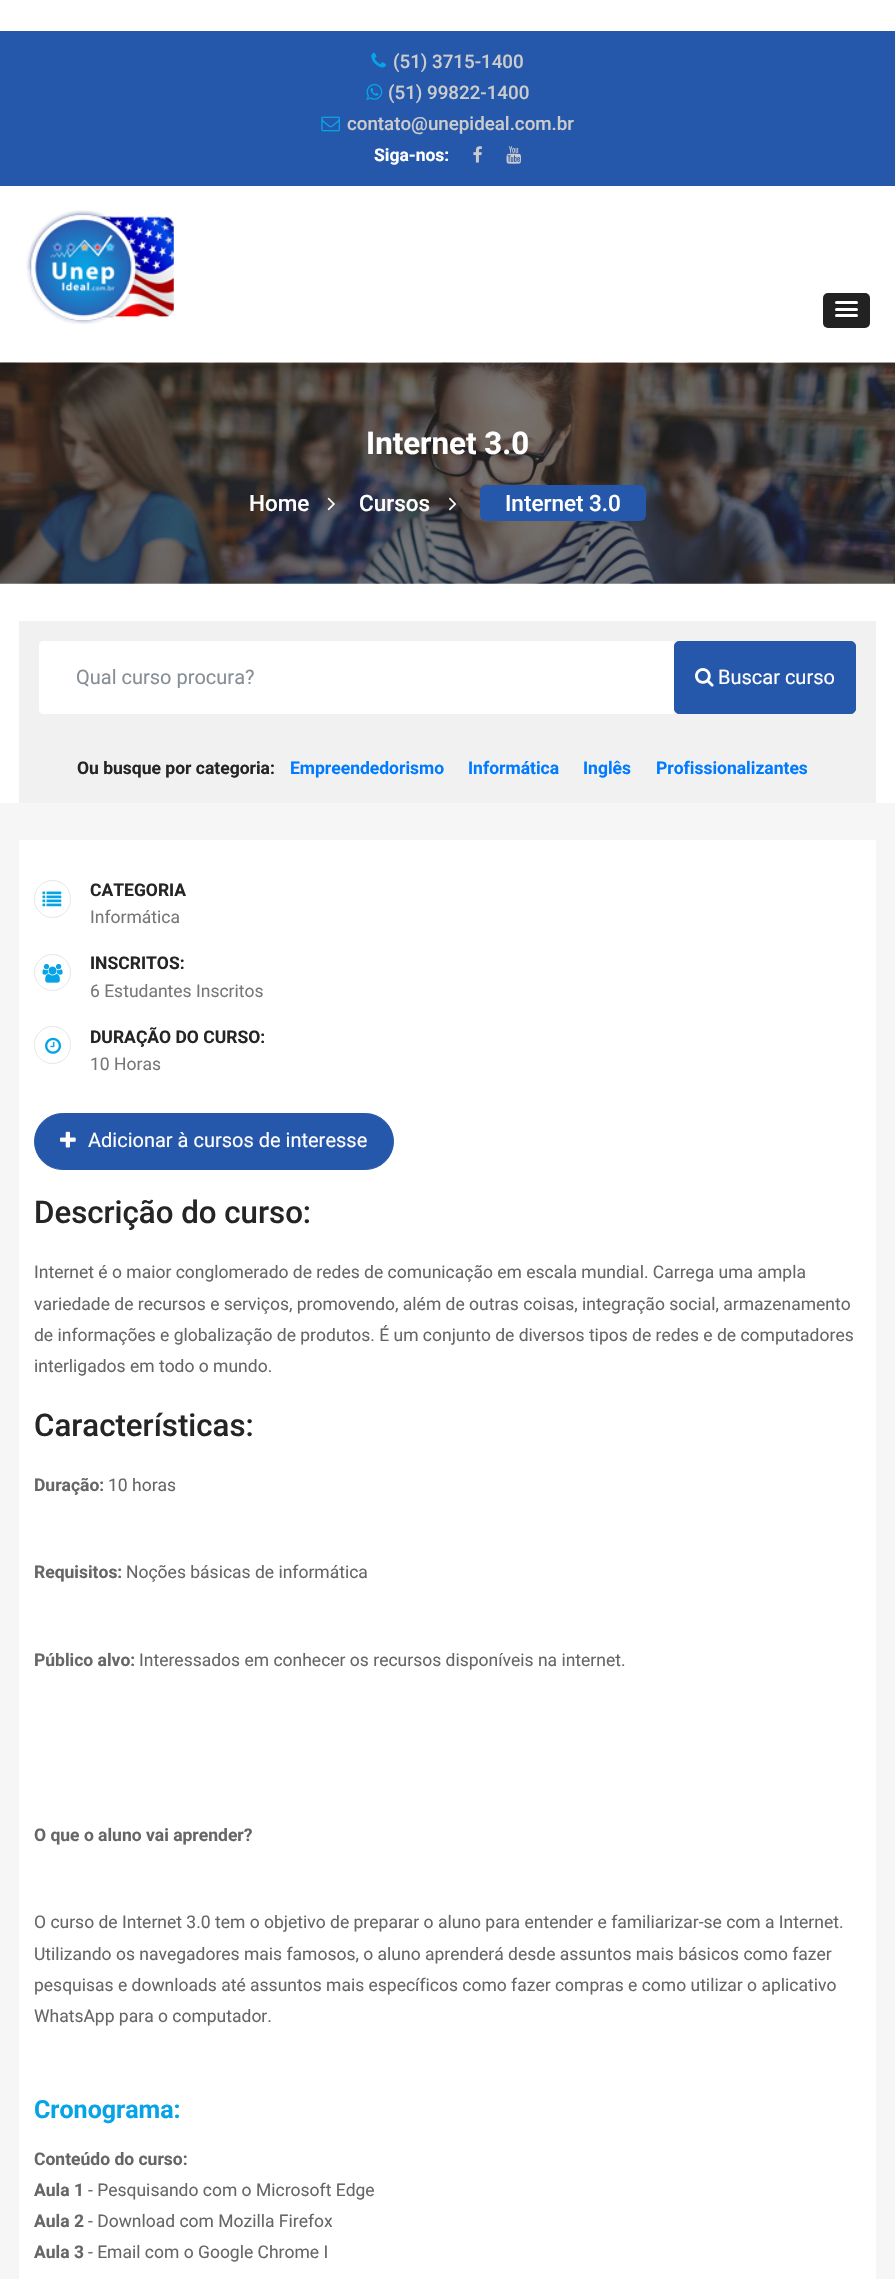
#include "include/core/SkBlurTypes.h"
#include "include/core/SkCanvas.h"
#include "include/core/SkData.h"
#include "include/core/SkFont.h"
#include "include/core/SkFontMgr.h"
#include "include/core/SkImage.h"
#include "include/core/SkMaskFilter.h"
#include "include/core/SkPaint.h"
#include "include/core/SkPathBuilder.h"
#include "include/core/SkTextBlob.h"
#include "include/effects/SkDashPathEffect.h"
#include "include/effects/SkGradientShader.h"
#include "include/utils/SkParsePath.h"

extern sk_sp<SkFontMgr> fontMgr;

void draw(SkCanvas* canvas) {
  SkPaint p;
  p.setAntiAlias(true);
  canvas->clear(SK_ColorWHITE);
  p.setColor(SkColorSetRGB(37, 87, 170));
  canvas->drawRect(SkRect::MakeLTRB(0, 31, 895, 186), p);
  canvas->drawImageRect(SkImages::DeferredFromEncodedData(SkData::MakeFromFileName("images/1.png")), SkRect::MakeLTRB(371, 52, 386, 68), SkSamplingOptions());
  canvas->drawImageRect(SkImages::DeferredFromEncodedData(SkData::MakeFromFileName("images/2.png")), SkRect::MakeLTRB(366, 84, 383, 100), SkSamplingOptions());
  canvas->drawImageRect(SkImages::DeferredFromEncodedData(SkData::MakeFromFileName("images/3.png")), SkRect::MakeLTRB(321, 116, 340, 132), SkSamplingOptions());
  canvas->drawImageRect(SkImages::DeferredFromEncodedData(SkData::MakeFromFileName("images/4.png")), SkRect::MakeLTRB(473, 146, 482, 163), SkSamplingOptions());
  canvas->drawImageRect(SkImages::DeferredFromEncodedData(SkData::MakeFromFileName("images/5.png")), SkRect::MakeLTRB(506, 146, 521, 164), SkSamplingOptions());
  canvas->drawImageRect(SkImages::DeferredFromEncodedData(SkData::MakeFromFileName("images/6.png")), SkRect::MakeLTRB(26, 210, 174, 324), SkSamplingOptions());
  p.setColor(SkColorSetRGB(34, 34, 34));
  canvas->drawRoundRect(SkRect::MakeLTRB(823, 293, 870, 328), 5, 5, p);
  p.setColor(SkColorSetRGB(26, 26, 26));
  canvas->drawPath(SkPathBuilder().moveTo(835.5f, 303.5f).lineTo(835, 305).cubicTo(835.5f, 307, 839, 306, 840, 306).lineTo(843, 306).cubicTo(845, 306, 856.5f, 306.5f, 857.5f, 305.5f).cubicTo(858, 305, 858, 304, 857.5f, 303).lineTo(856.5f, 303.5f).cubicTo(854.5f, 304, 836, 304, 835.5f, 303.5f).close().detach(), p);
  p.setColor(SK_ColorWHITE);
  canvas->drawRoundRect(SkRect::MakeLTRB(835, 301, 858, 304), 1.5f, 1.5f, p);
  p.setColor(SkColorSetRGB(26, 26, 26));
  canvas->drawPath(SkPathBuilder().moveTo(835.5f, 309.5f).lineTo(835, 311).cubicTo(835.5f, 313, 839, 312, 840, 312).lineTo(853, 312).cubicTo(854.5f, 312, 858, 313, 858, 310.5f).lineTo(857.5f, 309.5f).lineTo(856.5f, 310).cubicTo(854.5f, 310.5f, 836, 310.5f, 835.5f, 309.5f).close().detach(), p);
  p.setColor(SK_ColorWHITE);
  canvas->drawRoundRect(SkRect::MakeLTRB(835, 308, 858, 311), 1.5f, 1.5f, p);
  p.setColor(SkColorSetRGB(26, 26, 26));
  canvas->drawPath(SkPathBuilder().moveTo(835, 315.5f).cubicTo(833.5f, 318.5f, 839.5f, 318, 840, 318).lineTo(853, 318).cubicTo(854, 318, 857.5f, 319, 858, 317).cubicTo(858, 316.5f, 858, 315.5f, 857.5f, 315.5f).lineTo(856.5f, 316).lineTo(836, 316).close().detach(), p);
  p.setColor(SK_ColorWHITE);
  canvas->drawRoundRect(SkRect::MakeLTRB(835, 314, 858, 317), 1.5f, 1.5f, p);
  canvas->drawImageRect(SkImages::DeferredFromEncodedData(SkData::MakeFromFileName("images/7.png")), SkRect::MakeLTRB(0, 362, 895, 584), SkSamplingOptions());
  canvas->drawImageRect(SkImages::DeferredFromEncodedData(SkData::MakeFromFileName("images/8.png")), SkRect::MakeLTRB(327, 497, 335, 511), SkSamplingOptions());
  canvas->drawImageRect(SkImages::DeferredFromEncodedData(SkData::MakeFromFileName("images/9.png")), SkRect::MakeLTRB(449, 497, 457, 511), SkSamplingOptions());
  p.setColor(SkColorSetRGB(37, 87, 170));
  canvas->drawRoundRect(SkRect::MakeLTRB(480, 485, 646, 521), 6, 6, p);
  p.setColor(SkColorSetRGB(241, 241, 241));
  canvas->drawRect(SkRect::MakeLTRB(19, 621, 876, 803), p);
  p.setColor(SK_ColorWHITE);
  canvas->drawPath(SkPathBuilder().moveTo(43, 641).lineTo(674, 641).lineTo(674, 714).lineTo(43, 714).cubicTo(41, 714, 39, 712, 39, 710).lineTo(39, 645).cubicTo(39, 643, 41, 641, 43, 641).close().detach(), p);
  p.setColor(SkColorSetRGB(37, 87, 170));
  canvas->drawRoundRect(SkRect::MakeLTRB(674.5f, 641.5f, 855.5f, 713.5f), 4.5f, 4.5f, p);
  p.setStyle(SkPaint::kStroke_Style);
  p.setStrokeWidth(1);
  canvas->drawRoundRect(SkRect::MakeLTRB(674.5f, 641.5f, 855.5f, 713.5f), 4.5f, 4.5f, p);
  canvas->drawImageRect(SkImages::DeferredFromEncodedData(SkData::MakeFromFileName("images/10.png")), SkRect::MakeLTRB(695, 668, 714, 687), SkSamplingOptions());
  p.setStyle(SkPaint::kFill_Style);
  p.setColor(SkColorSetRGB(246, 246, 246));
  canvas->drawRect(SkRect::MakeLTRB(0, 803, 895, 2279), p);
  p.setColor(SK_ColorWHITE);
  canvas->drawRect(SkRect::MakeLTRB(19, 840, 876, 2279), p);
  p.setStyle(SkPaint::kStroke_Style);
  p.setColor(SkColorSetRGB(231, 231, 231));
  canvas->drawRoundRect(SkRect::MakeLTRB(34.5f, 880.5f, 70.5f, 917.5f), 18, 18, p);
  canvas->drawImageRect(SkImages::DeferredFromEncodedData(SkData::MakeFromFileName("images/11.png")), SkRect::MakeLTRB(42, 891, 62, 907), SkSamplingOptions());
  canvas->drawCircle(52.5f, 972.5f, 18, p);
  canvas->drawImageRect(SkImages::DeferredFromEncodedData(SkData::MakeFromFileName("images/12.png")), SkRect::MakeLTRB(42, 963, 63, 983), SkSamplingOptions());
  canvas->drawRoundRect(SkRect::MakeLTRB(34.5f, 1026.5f, 70.5f, 1063.5f), 18, 18, p);
  canvas->drawImageRect(SkImages::DeferredFromEncodedData(SkData::MakeFromFileName("images/13.png")), SkRect::MakeLTRB(45, 1037, 62, 1054), SkSamplingOptions());
  p.setStyle(SkPaint::kFill_Style);
  p.setColor(SkColorSetRGB(37, 87, 170));
  canvas->drawRoundRect(SkRect::MakeLTRB(34.5f, 1113.5f, 393.5f, 1169.5f), 28, 28, p);
  p.setStyle(SkPaint::kStroke_Style);
  canvas->drawRoundRect(SkRect::MakeLTRB(34.5f, 1113.5f, 393.5f, 1169.5f), 28, 28, p);
  canvas->drawImageRect(SkImages::DeferredFromEncodedData(SkData::MakeFromFileName("images/14.png")), SkRect::MakeLTRB(60, 1131, 76, 1148), SkSamplingOptions());
  SkFont font1(fontMgr->matchFamilyStyle("Roboto", SkFontStyle(500, SkFontStyle::kNormal_Width, SkFontStyle::kUpright_Slant)), 18.75f);
  font1.setSubpixel(true);
  p.setStyle(SkPaint::kFill_Style);
  p.setColor(SkColorSetRGB(204, 204, 204));
  canvas->drawString("(51) 3715-1400", 393, 68, font1, p);
  canvas->drawString("(51) 99822-1400", 388, 99, font1, p);
  canvas->drawString("contato@unepideal.com.br", 347, 130, font1, p);
  SkFont font2(fontMgr->matchFamilyStyle("Roboto", SkFontStyle::Bold()), 17.5f);
  font2.setSubpixel(true);
  p.setColor(SK_ColorWHITE);
  canvas->drawString("Siga-nos:", 374, 161, font2, p);
  SkFont font3(fontMgr->matchFamilyStyle("Roboto", SkFontStyle::Bold()), 31.25f);
  font3.setSubpixel(true);
  canvas->drawString("Internet 3.0", 366, 454, font3, p);
  SkFont font4(fontMgr->matchFamilyStyle("Roboto", SkFontStyle(500, SkFontStyle::kNormal_Width, SkFontStyle::kUpright_Slant)), 22.5f);
  font4.setSubpixel(true);
  canvas->drawString("Home", 249, 511, font4, p);
  canvas->drawString("Cursos", 359, 511, font4, p);
  canvas->drawString("Internet 3.0", 505, 511, font4, p);
  SkFont font5(fontMgr->matchFamilyStyle("Roboto", SkFontStyle::Normal()), 20);
  font5.setSubpixel(true);
  p.setColor(SkColorSetRGB(134, 142, 150));
  canvas->drawString("Qual curso procura?", 76, 684, font5, p);
  p.setColor(SK_ColorWHITE);
  canvas->drawString("Buscar curso", 718, 684, font5, p);
  p.setColor(SkColorSetRGB(37, 37, 37));
  canvas->drawString("Ou busque por categoria:", 77, 774, font2, p);
  p.setColor(SkColorSetRGB(0, 123, 255));
  canvas->drawString("Empreendedorismo", 290, 774, font2, p);
  canvas->drawString("Informática", 468, 774, font2, p);
  canvas->drawString("Inglês", 583, 774, font2, p);
  canvas->drawString("Profissionalizantes", 656, 774, font2, p);
  p.setColor(SkColorSetRGB(37, 37, 37));
  canvas->drawString("CATEGORIA", 90, 896, font2, p);
  SkFont font6(fontMgr->matchFamilyStyle("Roboto", SkFontStyle::Normal()), 17.5f);
  font6.setSubpixel(true);
  p.setColor(SkColorSetRGB(119, 119, 119));
  canvas->drawString("Informática", 90, 923, font6, p);
  p.setColor(SkColorSetRGB(37, 37, 37));
  canvas->drawString("INSCRITOS:", 90, 969, font2, p);
  p.setColor(SkColorSetRGB(119, 119, 119));
  canvas->drawString("6 Estudantes Inscritos", 90, 997, font6, p);
  p.setColor(SkColorSetRGB(37, 37, 37));
  canvas->drawString("DURAÇÃO DO CURSO:", 90, 1043, font2, p);
  p.setColor(SkColorSetRGB(119, 119, 119));
  canvas->drawString("10 Horas", 90, 1070, font6, p);
  p.setColor(SK_ColorWHITE);
  canvas->drawString("Adicionar à cursos de interesse", 88, 1147, font5, p);
  SkFont font7(fontMgr->matchFamilyStyle("Roboto", SkFontStyle(500, SkFontStyle::kNormal_Width, SkFontStyle::kUpright_Slant)), 31.25f);
  font7.setSubpixel(true);
  p.setColor(SkColorSetRGB(37, 37, 37));
  canvas->drawString("Descrição do curso:", 34, 1223, font7, p);
  p.setColor(SkColorSetRGB(102, 102, 102));
  canvas->drawString("Internet é o maior conglomerado de redes de comunicação em escala mundial. Carrega uma ampla", 34, 1278, font6, p);
  canvas->drawString("variedade de recursos e serviços, promovendo, além de outras coisas, integração social, armazenamento", 34, 1310, font6, p);
  canvas->drawString("de informações e globalização de produtos. É um conjunto de diversos tipos de redes e de computadores", 34, 1341, font6, p);
  canvas->drawString("interligados em todo o mundo.", 34, 1372, font6, p);
  p.setColor(SkColorSetRGB(37, 37, 37));
  canvas->drawString("Características:", 34, 1436, font7, p);
  p.setColor(SkColorSetRGB(102, 102, 102));
  canvas->drawString("Duração:", 34, 1491, font2, p);
  canvas->drawString("10 horas", 108, 1491, font6, p);
  canvas->drawString("Requisitos:", 34, 1578, font2, p);
  canvas->drawString("Noções básicas de informática", 126, 1578, font6, p);
  canvas->drawString("Público alvo:", 34, 1666, font2, p);
  canvas->drawString("Interessados em conhecer os recursos disponíveis na internet.", 139, 1666, font6, p);
  canvas->drawString("O que o aluno vai aprender?", 34, 1841, font2, p);
  canvas->drawString("O curso de Internet 3.0 tem o objetivo de preparar o aluno para entender e familiarizar-se com a Internet.", 34, 1928, font6, p);
  canvas->drawString("Utilizando os navegadores mais famosos, o aluno aprenderá desde assuntos mais básicos como fazer", 34, 1960, font6, p);
  canvas->drawString("pesquisas e downloads até assuntos mais específicos como fazer compras e como utilizar o aplicativo", 34, 1991, font6, p);
  canvas->drawString("WhatsApp para o computador.", 34, 2022, font6, p);
  SkFont font8(fontMgr->matchFamilyStyle("Roboto", SkFontStyle::Bold()), 25);
  font8.setSubpixel(true);
  p.setColor(SkColorSetRGB(6, 163, 230));
  canvas->drawString("Cronograma:", 34, 2118, font8, p);
  p.setColor(SkColorSetRGB(102, 102, 102));
  canvas->drawString("Conteúdo do curso:", 34, 2165, font2, p);
  canvas->drawString("Aula 1", 34, 2196, font2, p);
  canvas->drawString("- Pesquisando com o Microsoft Edge", 88, 2196, font6, p);
  canvas->drawString("Aula 2", 34, 2227, font2, p);
  canvas->drawString("- Download com Mozilla Firefox", 88, 2227, font6, p);
  canvas->drawString("Aula 3", 34, 2258, font2, p);
  canvas->drawString("- Email com o Google Chrome I", 88, 2258, font6, p);
}
